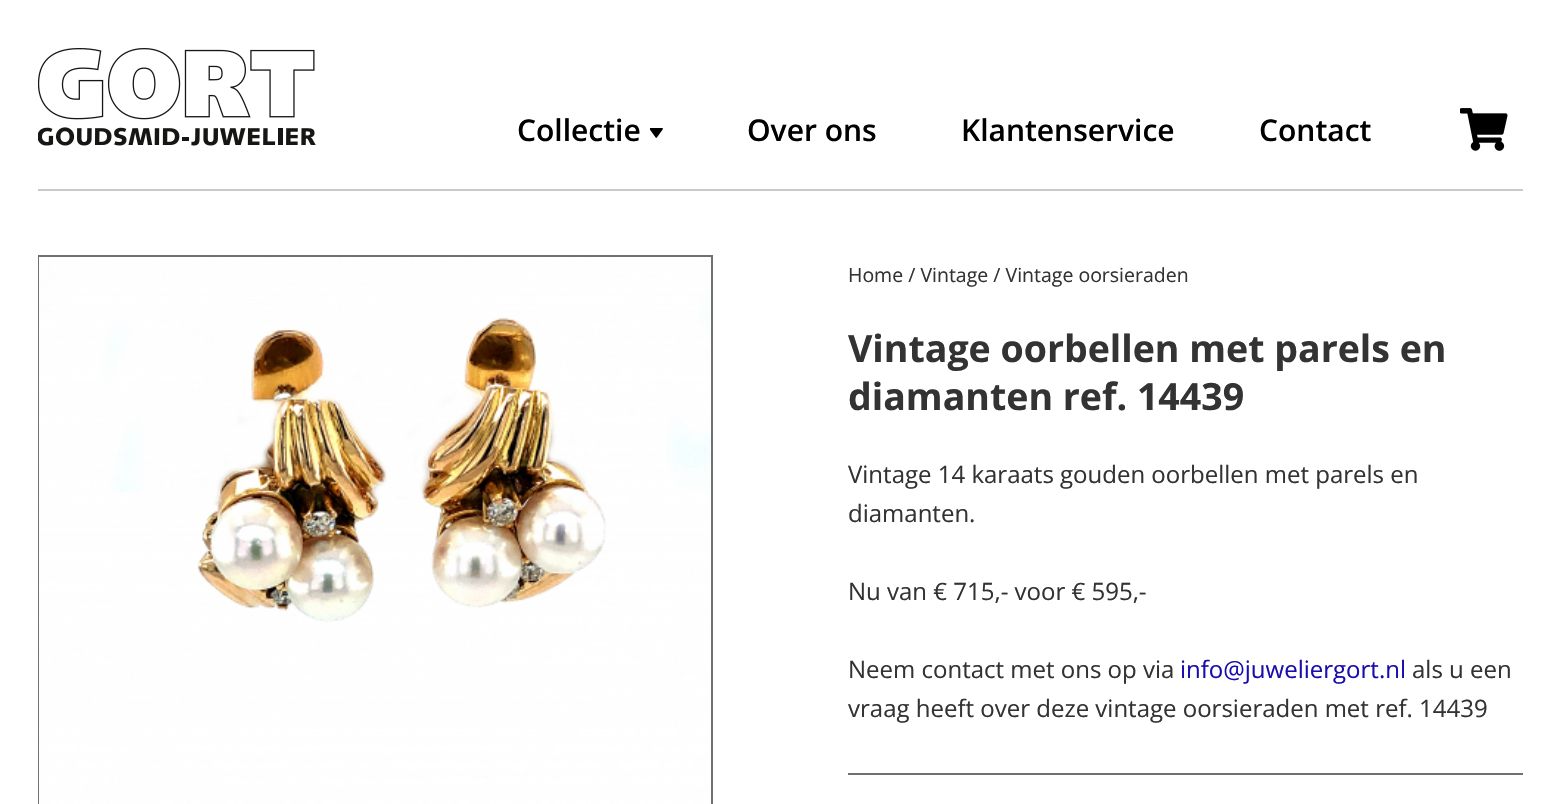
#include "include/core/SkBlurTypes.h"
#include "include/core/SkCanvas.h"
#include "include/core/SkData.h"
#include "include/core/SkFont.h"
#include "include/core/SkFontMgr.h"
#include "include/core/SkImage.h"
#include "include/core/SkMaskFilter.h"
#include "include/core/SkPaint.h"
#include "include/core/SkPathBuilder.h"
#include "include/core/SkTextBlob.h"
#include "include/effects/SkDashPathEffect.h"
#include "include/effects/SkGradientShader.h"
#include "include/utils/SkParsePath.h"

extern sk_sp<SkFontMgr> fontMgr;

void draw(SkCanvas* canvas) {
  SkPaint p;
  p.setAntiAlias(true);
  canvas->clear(SK_ColorWHITE);
  p.setColor(SkColorSetRGB(201, 201, 201));
  canvas->drawRect(SkRect::MakeLTRB(38, 189, 1523, 191), p);
  canvas->drawImageRect(SkImages::DeferredFromEncodedData(SkData::MakeFromFileName("images/1.png")), SkRect::MakeLTRB(38, 48, 316, 146), SkSamplingOptions());
  canvas->drawImageRect(SkImages::DeferredFromEncodedData(SkData::MakeFromFileName("images/2.png")), SkRect::MakeLTRB(650, 128, 663, 138), SkSamplingOptions());
  canvas->drawImageRect(SkImages::DeferredFromEncodedData(SkData::MakeFromFileName("images/3.png")), SkRect::MakeLTRB(1460, 108, 1508, 151), SkSamplingOptions());
  p.setStyle(SkPaint::kStroke_Style);
  p.setStrokeWidth(2);
  p.setColor(SkColorSetRGB(112, 112, 112));
  canvas->drawRect(SkRect::MakeLTRB(39, 256, 712, 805), p);
  canvas->drawImageRect(SkImages::DeferredFromEncodedData(SkData::MakeFromFileName("images/4.png")), SkRect::MakeLTRB(39, 257, 711, 804), SkSamplingOptions());
  p.setStyle(SkPaint::kFill_Style);
  canvas->drawRect(SkRect::MakeLTRB(848, 773, 1523, 775), p);
  SkFont font1(fontMgr->matchFamilyStyle("Open Sans", SkFontStyle(600, SkFontStyle::kNormal_Width, SkFontStyle::kUpright_Slant)), 30);
  font1.setSubpixel(true);
  p.setColor(SK_ColorBLACK);
  canvas->drawString("Collectie", 517, 141, font1, p);
  canvas->drawString("Over ons", 747, 141, font1, p);
  canvas->drawString("Klantenservice", 961, 141, font1, p);
  canvas->drawString("Contact", 1259, 141, font1, p);
  SkFont font2(fontMgr->matchFamilyStyle("Open Sans", SkFontStyle::Normal()), 19.5f);
  font2.setSubpixel(true);
  p.setColor(SkColorSetRGB(51, 51, 51));
  canvas->drawString("Home / Vintage / Vintage oorsieraden", 848, 282, font2, p);
  SkFont font3(fontMgr->matchFamilyStyle("Open Sans", SkFontStyle::Bold()), 37.5f);
  font3.setSubpixel(true);
  canvas->drawString("Vintage oorbellen met parels en", 848, 362, font3, p);
  canvas->drawString("diamanten ref. 14439", 848, 410, font3, p);
  SkFont font4(fontMgr->matchFamilyStyle("Open Sans", SkFontStyle::Normal()), 24);
  font4.setSubpixel(true);
  canvas->drawString("Vintage 14 karaats gouden oorbellen met parels en", 848, 483, font4, p);
  canvas->drawString("diamanten.", 848, 522, font4, p);
  canvas->drawString("Nu van € 715,- voor € 595,-", 848, 600, font4, p);
  canvas->drawString("Neem contact met ons op via", 848, 678, font4, p);
  p.setColor(SkColorSetRGB(26, 13, 171));
  canvas->drawString("info@juweliergort.nl", 1180, 678, font4, p);
  p.setColor(SkColorSetRGB(51, 51, 51));
  canvas->drawString("als u een", 1412, 678, font4, p);
  canvas->drawString("vraag heeft over deze vintage oorsieraden met ref. 14439", 848, 717, font4, p);
}
